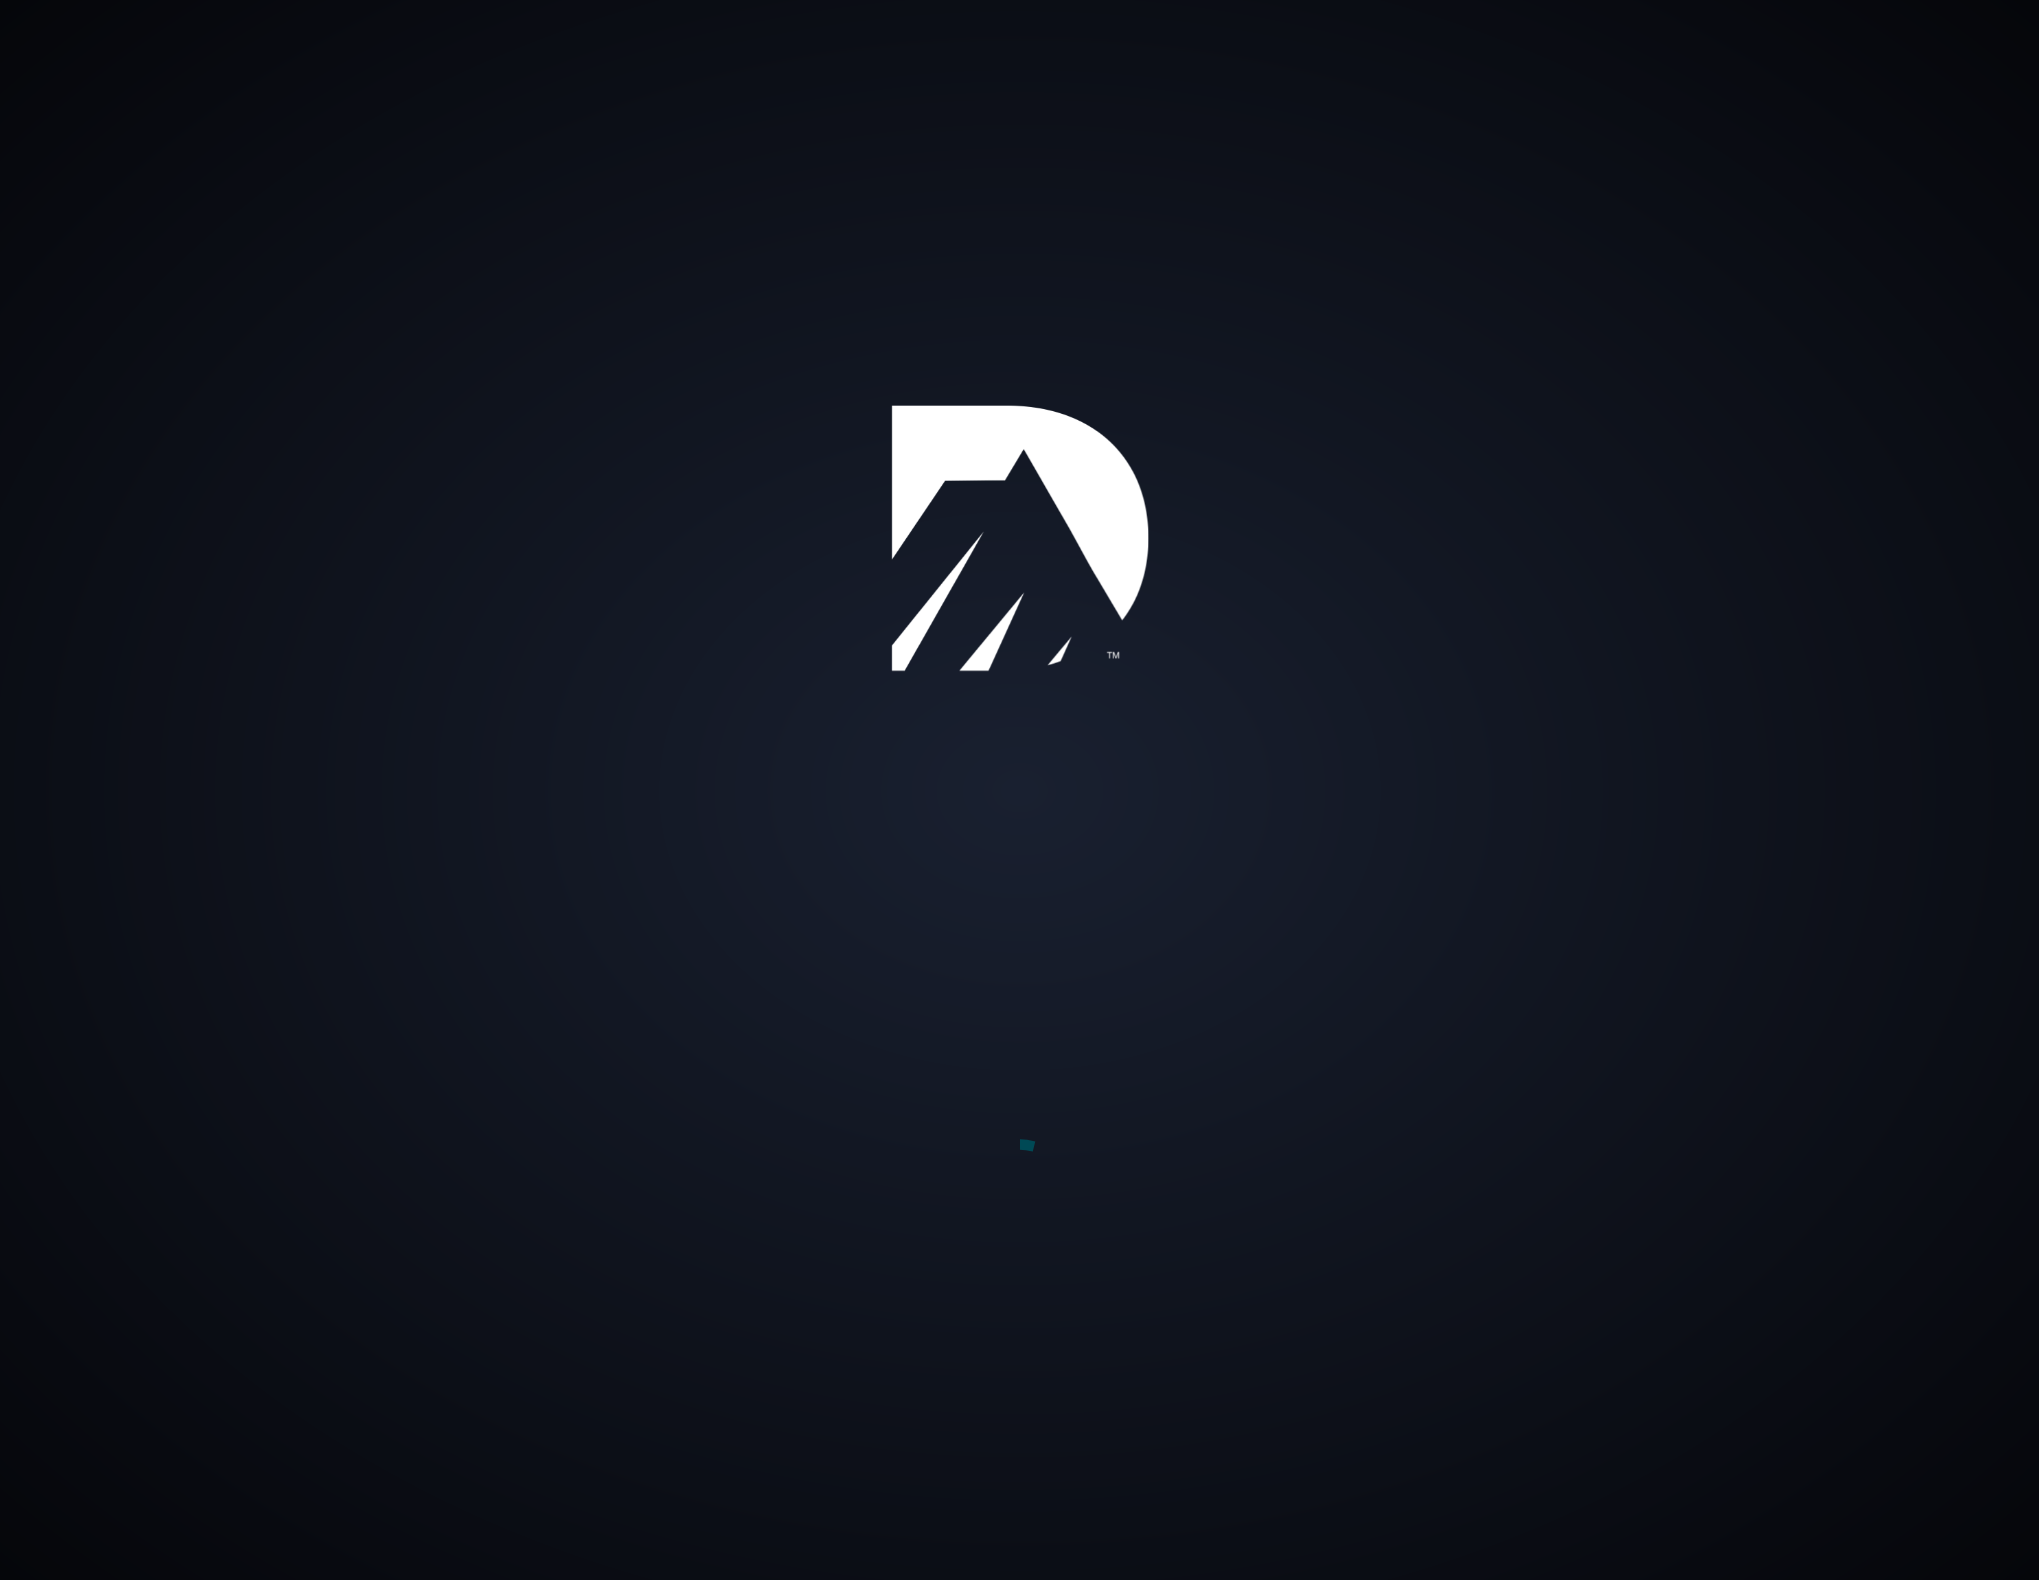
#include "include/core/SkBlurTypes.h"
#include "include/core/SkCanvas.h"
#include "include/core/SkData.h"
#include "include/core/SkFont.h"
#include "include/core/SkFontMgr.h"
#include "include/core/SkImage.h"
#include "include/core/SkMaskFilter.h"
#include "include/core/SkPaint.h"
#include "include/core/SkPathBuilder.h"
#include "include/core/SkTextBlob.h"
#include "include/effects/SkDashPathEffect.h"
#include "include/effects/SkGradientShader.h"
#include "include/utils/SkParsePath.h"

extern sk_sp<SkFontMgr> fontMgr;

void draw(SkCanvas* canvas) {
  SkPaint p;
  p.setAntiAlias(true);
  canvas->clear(SK_ColorWHITE);
  {
    const SkColor colors[] = {SkColorSetRGB(25, 32, 48), SkColorSetRGB(5, 6, 10)};
    const float stops[] = {0, 1};
    SkMatrix m = SkMatrix::Translate(1020, 791).preScale(1443, 1118);
    p.setShader(SkGradientShader::MakeRadial({0, 0}, 1, colors, stops, 2, SkTileMode::kClamp, 0, &m));
    p.setAlpha(255);
  }
  canvas->drawRect(SkRect::MakeLTRB(0, 0, 2039, 1580), p);
  canvas->drawImageRect(SkImages::DeferredFromEncodedData(SkData::MakeFromFileName("images/1.png")), SkRect::MakeLTRB(891, 405, 1149, 672), SkSamplingOptions());
  p.setStyle(SkPaint::kStroke_Style);
  p.setStrokeWidth(10.3f);
  p.setShader(nullptr);
  p.setColor(SkColorSetRGB(0, 73, 85));
  canvas->drawPath(SkPathBuilder().moveTo(1020, 1144.5f).cubicTo(1025, 1144.5f, 1030, 1145.5f, 1034, 1146.5f).detach(), p);
}
